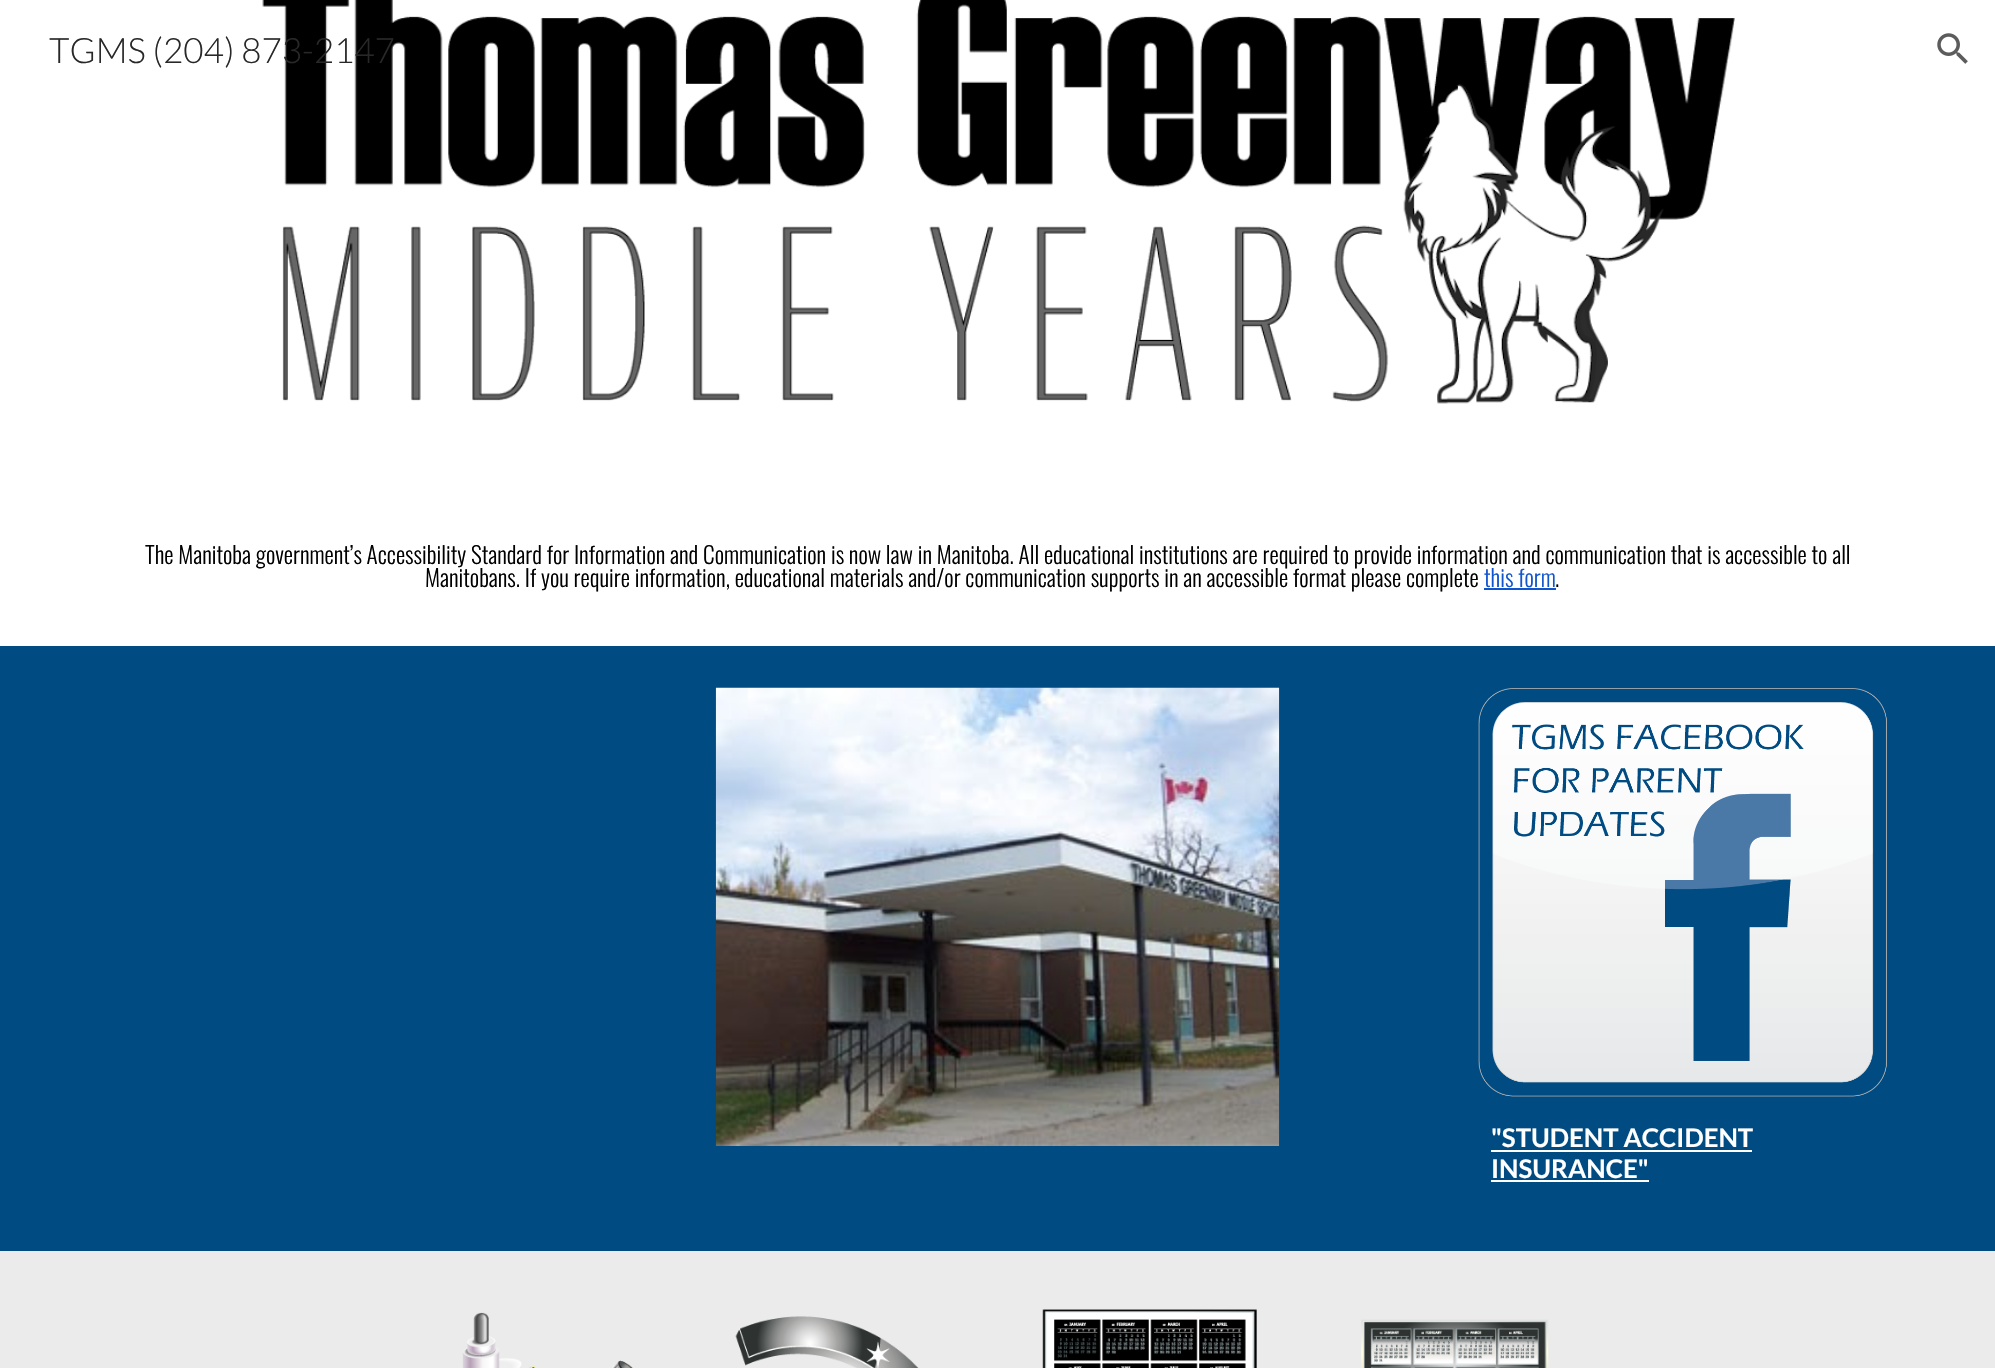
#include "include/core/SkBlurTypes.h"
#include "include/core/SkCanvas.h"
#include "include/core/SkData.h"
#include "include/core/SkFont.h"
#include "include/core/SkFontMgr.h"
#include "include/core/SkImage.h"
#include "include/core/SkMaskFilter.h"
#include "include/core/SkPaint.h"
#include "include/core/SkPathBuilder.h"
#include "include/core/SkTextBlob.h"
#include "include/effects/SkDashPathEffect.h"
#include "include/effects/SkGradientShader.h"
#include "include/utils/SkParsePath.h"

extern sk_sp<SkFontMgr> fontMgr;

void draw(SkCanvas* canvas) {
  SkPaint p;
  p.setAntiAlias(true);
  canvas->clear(SK_ColorWHITE);
  canvas->drawImageRect(SkImages::DeferredFromEncodedData(SkData::MakeFromFileName("images/1.png")), SkRect::MakeLTRB(1937, 33, 1968, 64), SkSamplingOptions());
  canvas->drawImageRect(SkImages::DeferredFromEncodedData(SkData::MakeFromFileName("images/2.png")), SkRect::MakeLTRB(262, 0, 1735, 404), SkSamplingOptions());
  p.setColor(SkColorSetRGB(17, 85, 204));
  canvas->drawRect(SkRect::MakeLTRB(1484, 588, 1556, 590), p);
  p.setColor(SkColorSetRGB(0, 75, 129));
  canvas->drawRect(SkRect::MakeLTRB(0, 646, 1995, 1251), p);
  canvas->drawImageRect(SkImages::DeferredFromEncodedData(SkData::MakeFromFileName("images/3.png")), SkRect::MakeLTRB(715, 687, 1280, 1146), SkSamplingOptions());
  canvas->drawImageRect(SkImages::DeferredFromEncodedData(SkData::MakeFromFileName("images/4.png")), SkRect::MakeLTRB(1478, 688, 1887, 1097), SkSamplingOptions());
  p.setColor(SK_ColorWHITE);
  canvas->drawRect(SkRect::MakeLTRB(1491, 1150, 1752, 1152), p);
  canvas->drawRect(SkRect::MakeLTRB(1491, 1180, 1649, 1182), p);
  p.setColor(SkColorSetRGB(235, 235, 235));
  canvas->drawRect(SkRect::MakeLTRB(0, 1251, 1995, 1368), p);
  canvas->drawImageRect(SkImages::DeferredFromEncodedData(SkData::MakeFromFileName("images/5.png")), SkRect::MakeLTRB(462, 1312, 633, 1368), SkSamplingOptions());
  canvas->drawImageRect(SkImages::DeferredFromEncodedData(SkData::MakeFromFileName("images/6.png")), SkRect::MakeLTRB(735, 1316, 919, 1368), SkSamplingOptions());
  canvas->drawImageRect(SkImages::DeferredFromEncodedData(SkData::MakeFromFileName("images/7.png")), SkRect::MakeLTRB(1042, 1309, 1257, 1368), SkSamplingOptions());
  canvas->drawImageRect(SkImages::DeferredFromEncodedData(SkData::MakeFromFileName("images/8.png")), SkRect::MakeLTRB(1361, 1319, 1549, 1368), SkSamplingOptions());
  SkFont font1(fontMgr->matchFamilyStyle("Lato", SkFontStyle(300, SkFontStyle::kNormal_Width, SkFontStyle::kUpright_Slant)), 35);
  font1.setSubpixel(true);
  p.setColor(SkColorSetRGB(40, 40, 40));
  canvas->drawString("TGMS (204) 873-2147", 49, 63, font1, p);
  SkFont font2(fontMgr->matchFamilyStyle("Oswald", SkFontStyle(300, SkFontStyle::kNormal_Width, SkFontStyle::kUpright_Slant)), 23.33f);
  font2.setSubpixel(true);
  p.setColor(SK_ColorBLACK);
  canvas->drawString("The Manitoba government’s Accessibility Standard for Information and Communication is now law in Manitoba. All educational institutions are required to provide information and communication that is accessible to all", 145, 564, font2, p);
  canvas->drawString("Manitobans. If you require information, educational materials and/or communication supports in an accessible format please complete", 425, 587, font2, p);
  p.setColor(SkColorSetRGB(17, 85, 204));
  canvas->drawString("this form", 1484, 587, font2, p);
  p.setColor(SK_ColorBLACK);
  canvas->drawString(".", 1555, 587, font2, p);
  SkFont font3(fontMgr->matchFamilyStyle("Lato", SkFontStyle::Bold()), 25.75f);
  font3.setSubpixel(true);
  p.setColor(SK_ColorWHITE);
  canvas->drawString("\"STUDENT ACCIDENT", 1491, 1147, font3, p);
  canvas->drawString("INSURANCE\"", 1491, 1178, font3, p);
}
